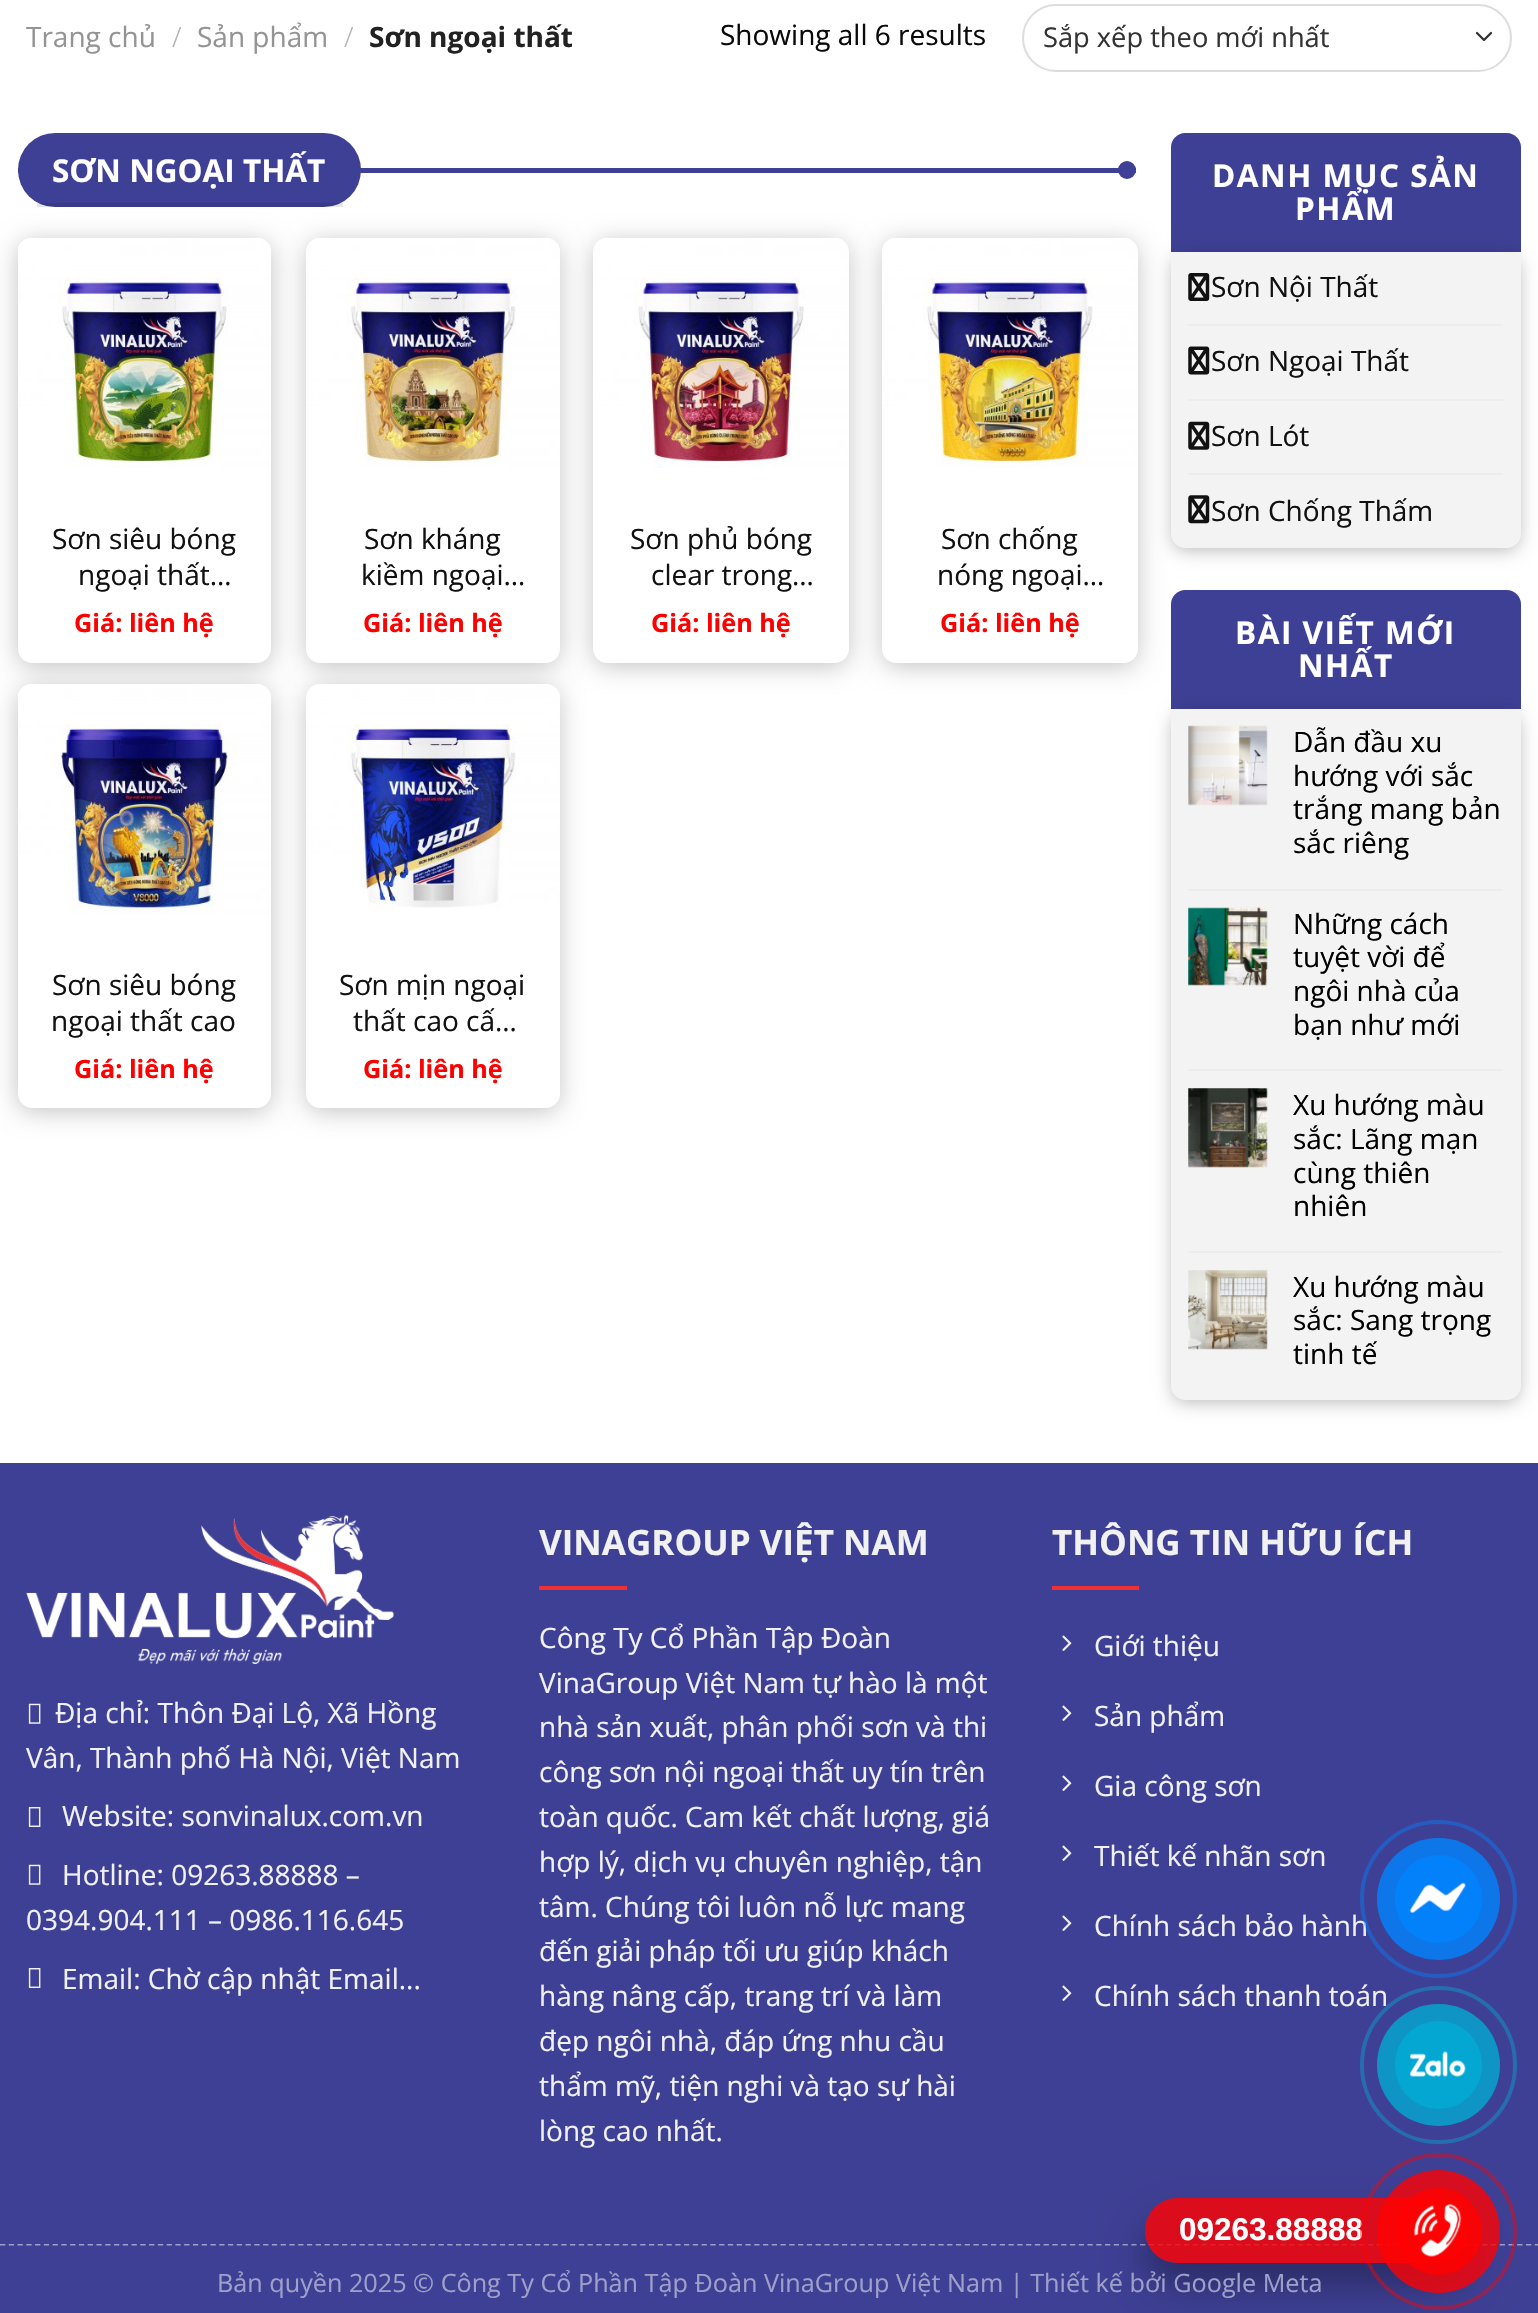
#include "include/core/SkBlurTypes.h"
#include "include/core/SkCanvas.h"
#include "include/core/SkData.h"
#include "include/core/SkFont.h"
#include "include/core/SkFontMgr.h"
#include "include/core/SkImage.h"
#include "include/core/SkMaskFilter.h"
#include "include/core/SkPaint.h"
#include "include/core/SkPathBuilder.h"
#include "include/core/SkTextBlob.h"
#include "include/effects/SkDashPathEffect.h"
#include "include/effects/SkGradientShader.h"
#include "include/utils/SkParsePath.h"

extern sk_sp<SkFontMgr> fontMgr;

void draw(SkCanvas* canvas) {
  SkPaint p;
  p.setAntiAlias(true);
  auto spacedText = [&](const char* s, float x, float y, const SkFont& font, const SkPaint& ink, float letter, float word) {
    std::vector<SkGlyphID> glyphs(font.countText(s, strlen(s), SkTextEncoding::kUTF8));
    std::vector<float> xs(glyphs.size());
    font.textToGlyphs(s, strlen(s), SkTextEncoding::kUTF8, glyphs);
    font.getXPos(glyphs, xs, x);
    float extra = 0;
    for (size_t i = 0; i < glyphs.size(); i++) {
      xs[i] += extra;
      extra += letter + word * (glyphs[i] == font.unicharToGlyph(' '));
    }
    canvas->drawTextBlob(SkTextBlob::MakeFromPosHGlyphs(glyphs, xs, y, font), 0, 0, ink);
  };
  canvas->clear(SK_ColorWHITE);
  p.setStyle(SkPaint::kStroke_Style);
  p.setStrokeWidth(2.3f);
  p.setStrokeCap(SkPaint::kRound_Cap);
  p.setStrokeJoin(SkPaint::kRound_Join);
  p.setColor(SkColorSetRGB(51, 51, 51));
  canvas->drawPath(SkPathBuilder().moveTo(1477, 33).lineTo(1484, 40).lineTo(1491, 33).detach(), p);
  p.setStrokeWidth(2);
  p.setStrokeCap(SkPaint::kButt_Cap);
  p.setStrokeJoin(SkPaint::kMiter_Join);
  p.setColor(SkColorSetRGB(221, 221, 221));
  canvas->drawRoundRect(SkRect::MakeLTRB(1023, 5, 1511, 71), 33, 33, p);
  p.setStyle(SkPaint::kFill_Style);
  p.setColor(SkColorSetRGB(62, 64, 149));
  canvas->drawRect(SkRect::MakeLTRB(18, 168, 1136, 173), p);
  canvas->save();
  canvas->clipPath(SkPathBuilder(SkPathFillType::kEvenOdd).moveTo(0, 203).lineTo(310, 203).lineTo(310, 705).lineTo(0, 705).close().moveTo(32, 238).lineTo(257, 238).cubicTo(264.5f, 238, 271, 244.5f, 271, 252).lineTo(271, 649).cubicTo(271, 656.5f, 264.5f, 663, 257, 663).lineTo(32, 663).cubicTo(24.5f, 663, 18, 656.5f, 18, 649).lineTo(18, 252).cubicTo(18, 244.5f, 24.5f, 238, 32, 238).close().detach(), true);
  p.setColor(SkColorSetARGB(66, 0, 0, 0));
  p.setMaskFilter(SkMaskFilter::MakeBlur(kNormal_SkBlurStyle, 13));
  canvas->drawRoundRect(SkRect::MakeLTRB(19, 243, 270, 665), 12, 12, p);
  p.setMaskFilter(nullptr);
  canvas->restore();
  canvas->drawImageRect(SkImages::DeferredFromEncodedData(SkData::MakeFromFileName("images/1.png")), SkRect::MakeLTRB(18, 238, 271, 468), SkSamplingOptions());
  canvas->save();
  canvas->clipPath(SkPathBuilder(SkPathFillType::kEvenOdd).moveTo(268, 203).lineTo(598, 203).lineTo(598, 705).lineTo(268, 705).close().moveTo(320, 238).lineTo(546, 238).cubicTo(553.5f, 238, 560, 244.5f, 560, 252).lineTo(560, 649).cubicTo(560, 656.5f, 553.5f, 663, 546, 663).lineTo(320, 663).cubicTo(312.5f, 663, 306, 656.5f, 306, 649).lineTo(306, 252).cubicTo(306, 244.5f, 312.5f, 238, 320, 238).close().detach(), true);
  p.setMaskFilter(SkMaskFilter::MakeBlur(kNormal_SkBlurStyle, 13));
  canvas->drawRoundRect(SkRect::MakeLTRB(308, 243, 558, 665), 12, 12, p);
  p.setMaskFilter(nullptr);
  canvas->restore();
  p.setColor(SkColorSetRGB(62, 64, 149));
  canvas->drawRoundRect(SkRect::MakeLTRB(18, 133, 361, 207), 37, 37, p);
  p.setColor(SkColorSetARGB(26, 0, 0, 0));
  canvas->drawRect(SkRect::MakeLTRB(37, 203, 343, 207), p);
  p.setColor(SkColorSetRGB(62, 64, 149));
  canvas->drawCircle(1127, 170, 9, p);
  canvas->drawImageRect(SkImages::DeferredFromEncodedData(SkData::MakeFromFileName("images/2.png")), SkRect::MakeLTRB(307, 238, 560, 468), SkSamplingOptions());
  canvas->save();
  canvas->clipPath(SkPathBuilder(SkPathFillType::kEvenOdd).moveTo(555, 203).lineTo(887, 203).lineTo(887, 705).lineTo(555, 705).close().moveTo(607, 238).lineTo(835, 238).cubicTo(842.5f, 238, 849, 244.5f, 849, 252).lineTo(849, 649).cubicTo(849, 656.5f, 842.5f, 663, 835, 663).lineTo(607, 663).cubicTo(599.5f, 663, 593, 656.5f, 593, 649).lineTo(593, 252).cubicTo(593, 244.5f, 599.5f, 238, 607, 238).close().detach(), true);
  p.setColor(SkColorSetARGB(66, 0, 0, 0));
  p.setMaskFilter(SkMaskFilter::MakeBlur(kNormal_SkBlurStyle, 13));
  canvas->drawRoundRect(SkRect::MakeLTRB(595, 243, 847, 665), 12, 12, p);
  p.setMaskFilter(nullptr);
  canvas->restore();
  canvas->drawImageRect(SkImages::DeferredFromEncodedData(SkData::MakeFromFileName("images/3.png")), SkRect::MakeLTRB(594, 238, 848, 468), SkSamplingOptions());
  canvas->save();
  canvas->clipPath(SkPathBuilder(SkPathFillType::kEvenOdd).moveTo(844, 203).lineTo(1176, 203).lineTo(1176, 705).lineTo(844, 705).close().moveTo(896, 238).lineTo(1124, 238).cubicTo(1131.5f, 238, 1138, 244.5f, 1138, 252).lineTo(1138, 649).cubicTo(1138, 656.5f, 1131.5f, 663, 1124, 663).lineTo(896, 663).cubicTo(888.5f, 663, 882, 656.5f, 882, 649).lineTo(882, 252).cubicTo(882, 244.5f, 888.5f, 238, 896, 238).close().detach(), true);
  p.setMaskFilter(SkMaskFilter::MakeBlur(kNormal_SkBlurStyle, 13));
  canvas->drawRoundRect(SkRect::MakeLTRB(884, 243, 1136, 665), 12, 12, p);
  p.setMaskFilter(nullptr);
  canvas->restore();
  canvas->drawImageRect(SkImages::DeferredFromEncodedData(SkData::MakeFromFileName("images/4.png")), SkRect::MakeLTRB(882, 238, 1137, 468), SkSamplingOptions());
  canvas->save();
  canvas->clipPath(SkPathBuilder(SkPathFillType::kEvenOdd).moveTo(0, 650).lineTo(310, 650).lineTo(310, 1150).lineTo(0, 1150).close().moveTo(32, 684).lineTo(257, 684).cubicTo(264.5f, 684, 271, 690.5f, 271, 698).lineTo(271, 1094).cubicTo(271, 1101.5f, 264.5f, 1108, 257, 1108).lineTo(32, 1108).cubicTo(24.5f, 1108, 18, 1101.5f, 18, 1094).lineTo(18, 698).cubicTo(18, 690.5f, 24.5f, 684, 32, 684).close().detach(), true);
  p.setMaskFilter(SkMaskFilter::MakeBlur(kNormal_SkBlurStyle, 13));
  canvas->drawRoundRect(SkRect::MakeLTRB(19, 690, 270, 1110), 12, 12, p);
  p.setMaskFilter(nullptr);
  canvas->restore();
  canvas->drawImageRect(SkImages::DeferredFromEncodedData(SkData::MakeFromFileName("images/5.png")), SkRect::MakeLTRB(18, 684, 271, 914), SkSamplingOptions());
  canvas->save();
  canvas->clipPath(SkPathBuilder(SkPathFillType::kEvenOdd).moveTo(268, 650).lineTo(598, 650).lineTo(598, 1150).lineTo(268, 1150).close().moveTo(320, 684).lineTo(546, 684).cubicTo(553.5f, 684, 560, 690.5f, 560, 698).lineTo(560, 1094).cubicTo(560, 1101.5f, 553.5f, 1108, 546, 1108).lineTo(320, 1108).cubicTo(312.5f, 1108, 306, 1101.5f, 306, 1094).lineTo(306, 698).cubicTo(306, 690.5f, 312.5f, 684, 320, 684).close().detach(), true);
  p.setMaskFilter(SkMaskFilter::MakeBlur(kNormal_SkBlurStyle, 13));
  canvas->drawRoundRect(SkRect::MakeLTRB(308, 690, 558, 1110), 12, 12, p);
  p.setMaskFilter(nullptr);
  canvas->restore();
  canvas->drawImageRect(SkImages::DeferredFromEncodedData(SkData::MakeFromFileName("images/6.png")), SkRect::MakeLTRB(307, 684, 560, 908), SkSamplingOptions());
  p.setColor(SkColorSetRGB(62, 64, 149));
  canvas->drawPath(SkPathBuilder().moveTo(1185, 133).lineTo(1507, 133).cubicTo(1514.5f, 133, 1521, 139.5f, 1521, 147).lineTo(1521, 252).lineTo(1171, 252).lineTo(1171, 147).cubicTo(1171, 139.5f, 1177.5f, 133, 1185, 133).close().detach(), p);
  p.setColor(SkColorSetARGB(71, 0, 0, 0));
  p.setMaskFilter(SkMaskFilter::MakeBlur(kNormal_SkBlurStyle, 9));
  canvas->drawRoundRect(SkRect::MakeLTRB(1173, 257, 1519, 550), 12, 12, p);
  p.setMaskFilter(nullptr);
  p.setColor(SkColorSetRGB(243, 243, 243));
  canvas->drawPath(SkPathBuilder().moveTo(1171, 252).lineTo(1521, 252).lineTo(1521, 534).cubicTo(1521, 541.5f, 1514.5f, 548, 1507, 548).lineTo(1185, 548).cubicTo(1177.5f, 548, 1171, 541.5f, 1171, 534).close().detach(), p);
  canvas->drawImageRect(SkImages::DeferredFromEncodedData(SkData::MakeFromFileName("images/7.png")), SkRect::MakeLTRB(1188, 273, 1210, 301), SkSamplingOptions());
  p.setColor(SkColorSetRGB(236, 236, 236));
  canvas->drawRect(SkRect::MakeLTRB(1188, 324, 1503, 326), p);
  canvas->drawImageRect(SkImages::DeferredFromEncodedData(SkData::MakeFromFileName("images/8.png")), SkRect::MakeLTRB(1188, 346, 1210, 375), SkSamplingOptions());
  canvas->drawRect(SkRect::MakeLTRB(1188, 399, 1503, 401), p);
  canvas->drawImageRect(SkImages::DeferredFromEncodedData(SkData::MakeFromFileName("images/9.png")), SkRect::MakeLTRB(1188, 421, 1210, 450), SkSamplingOptions());
  canvas->drawRect(SkRect::MakeLTRB(1188, 473, 1503, 475), p);
  canvas->drawImageRect(SkImages::DeferredFromEncodedData(SkData::MakeFromFileName("images/10.png")), SkRect::MakeLTRB(1188, 495, 1210, 524), SkSamplingOptions());
  p.setColor(SkColorSetRGB(62, 64, 149));
  canvas->drawPath(SkPathBuilder().moveTo(1185, 590).lineTo(1507, 590).cubicTo(1514.5f, 590, 1521, 596.5f, 1521, 604).lineTo(1521, 709).lineTo(1171, 709).lineTo(1171, 604).cubicTo(1171, 596.5f, 1177.5f, 590, 1185, 590).close().detach(), p);
  p.setColor(SkColorSetARGB(71, 0, 0, 0));
  p.setMaskFilter(SkMaskFilter::MakeBlur(kNormal_SkBlurStyle, 9));
  canvas->drawRoundRect(SkRect::MakeLTRB(1173, 714, 1519, 1402), 12, 12, p);
  p.setMaskFilter(nullptr);
  p.setColor(SkColorSetRGB(243, 243, 243));
  canvas->drawPath(SkPathBuilder().moveTo(1171, 709).lineTo(1521, 709).lineTo(1521, 1386).cubicTo(1521, 1393.5f, 1514.5f, 1400, 1507, 1400).lineTo(1185, 1400).cubicTo(1177.5f, 1400, 1171, 1393.5f, 1171, 1386).close().detach(), p);
  canvas->drawImageRect(SkImages::DeferredFromEncodedData(SkData::MakeFromFileName("images/11.png")), SkRect::MakeLTRB(1188, 725, 1268, 806), SkSamplingOptions());
  p.setColor(SkColorSetRGB(236, 236, 236));
  canvas->drawRect(SkRect::MakeLTRB(1188, 889, 1503, 891), p);
  canvas->drawImageRect(SkImages::DeferredFromEncodedData(SkData::MakeFromFileName("images/12.png")), SkRect::MakeLTRB(1188, 907, 1268, 986), SkSamplingOptions());
  canvas->drawRect(SkRect::MakeLTRB(1188, 1069, 1503, 1071), p);
  canvas->drawImageRect(SkImages::DeferredFromEncodedData(SkData::MakeFromFileName("images/13.png")), SkRect::MakeLTRB(1188, 1088, 1268, 1168), SkSamplingOptions());
  canvas->drawRect(SkRect::MakeLTRB(1188, 1251, 1503, 1253), p);
  canvas->drawImageRect(SkImages::DeferredFromEncodedData(SkData::MakeFromFileName("images/14.png")), SkRect::MakeLTRB(1188, 1270, 1268, 1350), SkSamplingOptions());
  p.setColor(SkColorSetRGB(62, 64, 149));
  canvas->drawRect(SkRect::MakeLTRB(0, 2244, 1538, 2313), p);
  p.setStyle(SkPaint::kStroke_Style);
  p.setStrokeWidth(1.8f);
  p.setColor(SkColorSetRGB(159, 160, 202));
  p.setPathEffect(SkDashPathEffect::Make({{5.25f, 3.52f}}, 0));
  canvas->drawPath(SkPathBuilder().moveTo(0, 2244.5f).lineTo(1538, 2244.5f).detach(), p);
  p.setPathEffect(nullptr);
  p.setStyle(SkPaint::kFill_Style);
  p.setColor(SkColorSetRGB(62, 64, 149));
  canvas->drawRect(SkRect::MakeLTRB(0, 1463, 1538, 2244), p);
  canvas->drawImageRect(SkImages::DeferredFromEncodedData(SkData::MakeFromFileName("images/15.png")), SkRect::MakeLTRB(26, 1515, 394, 1664), SkSamplingOptions());
  canvas->drawImageRect(SkImages::DeferredFromEncodedData(SkData::MakeFromFileName("images/16.png")), SkRect::MakeLTRB(28, 1703, 41, 1724), SkSamplingOptions());
  canvas->drawImageRect(SkImages::DeferredFromEncodedData(SkData::MakeFromFileName("images/17.png")), SkRect::MakeLTRB(28, 1807, 41, 1827), SkSamplingOptions());
  canvas->drawImageRect(SkImages::DeferredFromEncodedData(SkData::MakeFromFileName("images/16.png")), SkRect::MakeLTRB(28, 1864, 41, 1885), SkSamplingOptions());
  canvas->drawImageRect(SkImages::DeferredFromEncodedData(SkData::MakeFromFileName("images/17.png")), SkRect::MakeLTRB(28, 1968, 41, 1988), SkSamplingOptions());
  p.setColor(SkColorSetRGB(237, 50, 55));
  canvas->drawRect(SkRect::MakeLTRB(539, 1586, 627, 1590), p);
  canvas->drawRect(SkRect::MakeLTRB(1052, 1586, 1139, 1590), p);
  canvas->drawImageRect(SkImages::DeferredFromEncodedData(SkData::MakeFromFileName("images/18.png")), SkRect::MakeLTRB(1062, 1635, 1072, 1651), SkSamplingOptions());
  canvas->drawImageRect(SkImages::DeferredFromEncodedData(SkData::MakeFromFileName("images/18.png")), SkRect::MakeLTRB(1062, 1705, 1072, 1721), SkSamplingOptions());
  canvas->drawImageRect(SkImages::DeferredFromEncodedData(SkData::MakeFromFileName("images/18.png")), SkRect::MakeLTRB(1062, 1775, 1072, 1791), SkSamplingOptions());
  canvas->drawImageRect(SkImages::DeferredFromEncodedData(SkData::MakeFromFileName("images/18.png")), SkRect::MakeLTRB(1062, 1845, 1072, 1861), SkSamplingOptions());
  canvas->drawImageRect(SkImages::DeferredFromEncodedData(SkData::MakeFromFileName("images/18.png")), SkRect::MakeLTRB(1062, 1915, 1072, 1931), SkSamplingOptions());
  canvas->drawImageRect(SkImages::DeferredFromEncodedData(SkData::MakeFromFileName("images/18.png")), SkRect::MakeLTRB(1062, 1985, 1072, 2001), SkSamplingOptions());
  canvas->save();
  canvas->clipPath(SkPathBuilder(SkPathFillType::kEvenOdd).moveTo(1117, 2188).lineTo(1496, 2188).lineTo(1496, 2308).lineTo(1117, 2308).close().moveTo(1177.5f, 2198).lineTo(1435.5f, 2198).cubicTo(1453.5f, 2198, 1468, 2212.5f, 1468, 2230.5f).cubicTo(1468, 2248.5f, 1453.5f, 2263, 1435.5f, 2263).lineTo(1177.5f, 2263).cubicTo(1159.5f, 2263, 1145, 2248.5f, 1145, 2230.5f).cubicTo(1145, 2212.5f, 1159.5f, 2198, 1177.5f, 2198).close().detach(), true);
  p.setColor(SkColorSetARGB(26, 0, 0, 0));
  p.setMaskFilter(SkMaskFilter::MakeBlur(kNormal_SkBlurStyle, 9));
  canvas->drawRoundRect(SkRect::MakeLTRB(1145, 2216, 1468, 2280), 32, 32, p);
  p.setMaskFilter(nullptr);
  canvas->restore();
  canvas->save();
  canvas->clipPath(SkPathBuilder(SkPathFillType::kEvenOdd).moveTo(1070, 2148).lineTo(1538, 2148).lineTo(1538, 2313).lineTo(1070, 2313).close().moveTo(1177.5f, 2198).lineTo(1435.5f, 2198).cubicTo(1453.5f, 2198, 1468, 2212.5f, 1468, 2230.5f).cubicTo(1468, 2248.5f, 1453.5f, 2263, 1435.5f, 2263).lineTo(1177.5f, 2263).cubicTo(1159.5f, 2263, 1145, 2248.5f, 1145, 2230.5f).cubicTo(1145, 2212.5f, 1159.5f, 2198, 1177.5f, 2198).close().detach(), true);
  p.setColor(SkColorSetARGB(64, 0, 0, 0));
  p.setMaskFilter(SkMaskFilter::MakeBlur(kNormal_SkBlurStyle, 24.5f));
  canvas->drawRoundRect(SkRect::MakeLTRB(1145, 2223, 1468, 2287), 32, 32, p);
  p.setMaskFilter(nullptr);
  canvas->restore();
  p.setColor(SkColorSetARGB(207, 255, 0, 0));
  canvas->drawRoundRect(SkRect::MakeLTRB(1145, 2198, 1468, 2263), 32.5f, 32.5f, p);
  SkFont font1(fontMgr->matchFamilyStyle("Open Sans", SkFontStyle::Normal()), 28);
  font1.setSubpixel(true);
  p.setColor(SkColorSetRGB(148, 148, 148));
  canvas->drawString("Trang chủ", 26, 47, font1, p);
  SkFont font2(fontMgr->matchFamilyStyle("Open Sans", SkFontStyle(300, SkFontStyle::kNormal_Width, SkFontStyle::kUpright_Slant)), 28);
  font2.setSubpixel(true);
  p.setColor(SkColorSetRGB(178, 178, 178));
  canvas->drawString("/", 172, 47, font2, p);
  p.setColor(SkColorSetRGB(148, 148, 148));
  canvas->drawString("Sản phẩm", 197, 47, font1, p);
  p.setColor(SkColorSetRGB(178, 178, 178));
  canvas->drawString("/", 344, 47, font2, p);
  SkFont font3(fontMgr->matchFamilyStyle("Open Sans", SkFontStyle::Bold()), 28);
  font3.setSubpixel(true);
  p.setColor(SkColorSetRGB(34, 34, 34));
  canvas->drawString("Sơn ngoại thất", 369, 47, font3, p);
  p.setColor(SkColorSetRGB(10, 10, 10));
  canvas->drawString("Showing all 6 results", 720, 45, font1, p);
  SkFont font4(fontMgr->matchFamilyStyle("Open Sans", SkFontStyle::Normal()), 27.25f);
  font4.setSubpixel(true);
  p.setColor(SkColorSetRGB(51, 51, 51));
  canvas->drawString("Sắp xếp theo mới nhất", 1043, 47, font4, p);
  SkFont font5(fontMgr->matchFamilyStyle("Open Sans", SkFontStyle::Bold()), 31.5f);
  font5.setSubpixel(true);
  p.setColor(SK_ColorWHITE);
  canvas->drawString("SƠN NGOẠI THẤT", 52, 182, font5, p);
  p.setColor(SkColorSetRGB(17, 17, 17));
  canvas->drawString("Sơn siêu bóng", 52, 549, font1, p);
  canvas->drawString("ngoại thất…", 78, 585, font1, p);
  SkFont font6(fontMgr->matchFamilyStyle("Open Sans", SkFontStyle::Bold()), 25.2f);
  font6.setSubpixel(true);
  p.setColor(SkColorSetRGB(255, 0, 0));
  canvas->drawString("Giá: liên hệ", 74, 632, font6, p);
  p.setColor(SkColorSetRGB(17, 17, 17));
  canvas->drawString("Sơn kháng", 364, 549, font1, p);
  canvas->drawString("kiềm ngoại…", 361, 585, font1, p);
  p.setColor(SkColorSetRGB(255, 0, 0));
  canvas->drawString("Giá: liên hệ", 363, 632, font6, p);
  p.setColor(SkColorSetRGB(17, 17, 17));
  canvas->drawString("Sơn phủ bóng", 630, 549, font1, p);
  canvas->drawString("clear trong…", 651, 585, font1, p);
  p.setColor(SkColorSetRGB(255, 0, 0));
  canvas->drawString("Giá: liên hệ", 651, 632, font6, p);
  p.setColor(SkColorSetRGB(17, 17, 17));
  canvas->drawString("Sơn chống", 941, 549, font1, p);
  canvas->drawString("nóng ngoại…", 937, 585, font1, p);
  p.setColor(SkColorSetRGB(255, 0, 0));
  canvas->drawString("Giá: liên hệ", 940, 632, font6, p);
  p.setColor(SkColorSetRGB(17, 17, 17));
  canvas->drawString("Sơn siêu bóng", 52, 995, font1, p);
  canvas->drawString("ngoại thất cao", 51, 1031, font1, p);
  p.setColor(SkColorSetRGB(255, 0, 0));
  canvas->drawString("Giá: liên hệ", 74, 1078, font6, p);
  p.setColor(SkColorSetRGB(17, 17, 17));
  canvas->drawString("Sơn mịn ngoại", 339, 995, font1, p);
  canvas->drawString("thất cao cấ…", 353, 1031, font1, p);
  p.setColor(SkColorSetRGB(255, 0, 0));
  canvas->drawString("Giá: liên hệ", 363, 1078, font6, p);
  p.setColor(SK_ColorWHITE);
  spacedText("DANH MỤC SẢN", 1212, 187, font5, p, 1.5f, 0);
  spacedText("PHẨM", 1295, 220, font5, p, 1.5f, 0);
  p.setColor(SkColorSetRGB(17, 17, 17));
  canvas->drawString("Sơn Nội Thất", 1211, 297, font1, p);
  canvas->drawString("Sơn Ngoại Thất", 1211, 371, font1, p);
  canvas->drawString("Sơn Lót", 1211, 446, font1, p);
  canvas->drawString("Sơn Chống Thấm", 1211, 521, font1, p);
  p.setColor(SK_ColorWHITE);
  spacedText("BÀI VIẾT MỚI", 1235, 644, font5, p, 1.5f, 0);
  spacedText("NHẤT", 1298, 677, font5, p, 1.5f, 0);
  p.setColor(SK_ColorBLACK);
  canvas->drawString("Dẫn đầu xu", 1293, 752, font1, p);
  canvas->drawString("hướng với sắc", 1293, 786, font1, p);
  canvas->drawString("trắng mang bản", 1293, 819, font1, p);
  canvas->drawString("sắc riêng", 1293, 853, font1, p);
  canvas->drawString("Những cách", 1293, 934, font1, p);
  canvas->drawString("tuyệt vời để", 1293, 967, font1, p);
  canvas->drawString("ngôi nhà của", 1293, 1001, font1, p);
  canvas->drawString("bạn như mới", 1293, 1035, font1, p);
  canvas->drawString("Xu hướng màu", 1293, 1115, font1, p);
  canvas->drawString("sắc: Lãng mạn", 1293, 1149, font1, p);
  canvas->drawString("cùng thiên", 1293, 1183, font1, p);
  canvas->drawString("nhiên", 1293, 1216, font1, p);
  canvas->drawString("Xu hướng màu", 1293, 1297, font1, p);
  canvas->drawString("sắc: Sang trọng", 1293, 1330, font1, p);
  canvas->drawString("tinh tế", 1293, 1364, font1, p);
  p.setColor(SkColorSetRGB(241, 241, 241));
  canvas->drawString("Địa chỉ: Thôn Đại Lộ, Xã Hồng", 55, 1723, font1, p);
  canvas->drawString("Vân, Thành phố Hà Nội, Việt Nam", 26, 1768, font1, p);
  canvas->drawString("Website: sonvinalux.com.vn", 62, 1826, font1, p);
  canvas->drawString("Hotline: 09263.88888 –", 62, 1885, font1, p);
  canvas->drawString("0394.904.111 – 0986.116.645", 26, 1930, font1, p);
  canvas->drawString("Email: Chờ cập nhật Email...", 62, 1989, font1, p);
  SkFont font7(fontMgr->matchFamilyStyle("Open Sans", SkFontStyle::Bold()), 35);
  font7.setSubpixel(true);
  canvas->drawString("VINAGROUP VIỆT NAM", 539, 1555, font7, p);
  canvas->drawString("Công Ty Cổ Phần Tập Đoàn", 539, 1648, font1, p);
  canvas->drawString("VinaGroup Việt Nam tự hào là một", 539, 1693, font1, p);
  canvas->drawString("nhà sản xuất, phân phối sơn và thi", 539, 1737, font1, p);
  canvas->drawString("công sơn nội ngoại thất uy tín trên", 539, 1782, font1, p);
  canvas->drawString("toàn quốc. Cam kết chất lượng, giá", 539, 1827, font1, p);
  canvas->drawString("hợp lý, dịch vụ chuyên nghiệp, tận", 539, 1872, font1, p);
  canvas->drawString("tâm. Chúng tôi luôn nỗ lực mang", 539, 1917, font1, p);
  canvas->drawString("đến giải pháp tối ưu giúp khách", 539, 1961, font1, p);
  canvas->drawString("hàng nâng cấp, trang trí và làm", 539, 2006, font1, p);
  canvas->drawString("đẹp ngôi nhà, đáp ứng nhu cầu", 539, 2051, font1, p);
  canvas->drawString("thẩm mỹ, tiện nghi và tạo sự hài", 539, 2096, font1, p);
  canvas->drawString("lòng cao nhất.", 539, 2141, font1, p);
  canvas->drawString("THÔNG TIN HỮU ÍCH", 1052, 1555, font7, p);
  canvas->drawString("Giới thiệu", 1094, 1656, font1, p);
  canvas->drawString("Sản phẩm", 1094, 1726, font1, p);
  canvas->drawString("Gia công sơn", 1094, 1796, font1, p);
  canvas->drawString("Thiết kế nhãn sơn", 1094, 1866, font1, p);
  canvas->drawString("Chính sách bảo hành", 1094, 1936, font1, p);
  canvas->drawString("Chính sách thanh toán", 1094, 2006, font1, p);
  SkFont font8(fontMgr->matchFamilyStyle("Open Sans", SkFontStyle::Normal()), 25.2f);
  font8.setSubpixel(true);
  p.setColor(SkColorSetRGB(159, 160, 202));
  canvas->drawString("Bản quyền 2025 © Công Ty Cổ Phần Tập Đoàn VinaGroup Việt Nam | Thiết kế bởi Google Meta", 217, 2292, font8, p);
  p.setStyle(SkPaint::kStroke_Style);
  p.setStrokeWidth(4);
  p.setColor(SkColorSetARGB(107, 0, 132, 254));
  canvas->drawRoundRect(SkRect::MakeLTRB(1362, 1822, 1515, 1976), 76.5f, 76.5f, p);
  p.setStyle(SkPaint::kFill_Style);
  p.setColor(SkColorSetRGB(13, 118, 232));
  canvas->drawRoundRect(SkRect::MakeLTRB(1377, 1838, 1500, 1960), 61, 61, p);
  p.setColor(SkColorSetRGB(2, 129, 250));
  canvas->drawRoundRect(SkRect::MakeLTRB(1395, 1855, 1482, 1943), 43.5f, 43.5f, p);
  canvas->drawImageRect(SkImages::DeferredFromEncodedData(SkData::MakeFromFileName("images/19.png")), SkRect::MakeLTRB(1410, 1882, 1466, 1913), SkSamplingOptions());
  p.setStyle(SkPaint::kStroke_Style);
  p.setColor(SkColorSetRGB(37, 109, 175));
  canvas->drawRoundRect(SkRect::MakeLTRB(1362, 1988, 1515, 2142), 76.5f, 76.5f, p);
  p.setStyle(SkPaint::kFill_Style);
  p.setColor(SkColorSetRGB(14, 149, 198));
  canvas->drawRoundRect(SkRect::MakeLTRB(1377, 2004, 1500, 2126), 61, 61, p);
  p.setColor(SkColorSetRGB(3, 167, 209));
  canvas->drawRoundRect(SkRect::MakeLTRB(1395, 2021, 1482, 2109), 43.5f, 43.5f, p);
  canvas->drawImageRect(SkImages::DeferredFromEncodedData(SkData::MakeFromFileName("images/20.png")), SkRect::MakeLTRB(1410, 2051, 1466, 2077), SkSamplingOptions());
  SkFont font9(fontMgr->matchFamilyStyle("Liberation Sans", SkFontStyle::Bold()), 31.5f);
  font9.setSubpixel(true);
  p.setColor(SK_ColorWHITE);
  canvas->drawString("09263.88888", 1179, 2240, font9, p);
  p.setStyle(SkPaint::kStroke_Style);
  p.setColor(SkColorSetARGB(107, 255, 0, 0));
  canvas->drawCircle(1438.5f, 2231.5f, 76.5f, p);
  p.setStyle(SkPaint::kFill_Style);
  p.setColor(SkColorSetARGB(201, 255, 0, 0));
  canvas->drawCircle(1438.5f, 2231.5f, 61.5f, p);
  p.setColor(SkColorSetARGB(207, 255, 0, 0));
  canvas->drawCircle(1438.5f, 2231.5f, 43.5f, p);
  canvas->drawImageRect(SkImages::DeferredFromEncodedData(SkData::MakeFromFileName("images/21.png")), SkRect::MakeLTRB(1414, 2204, 1462, 2257), SkSamplingOptions());
}
